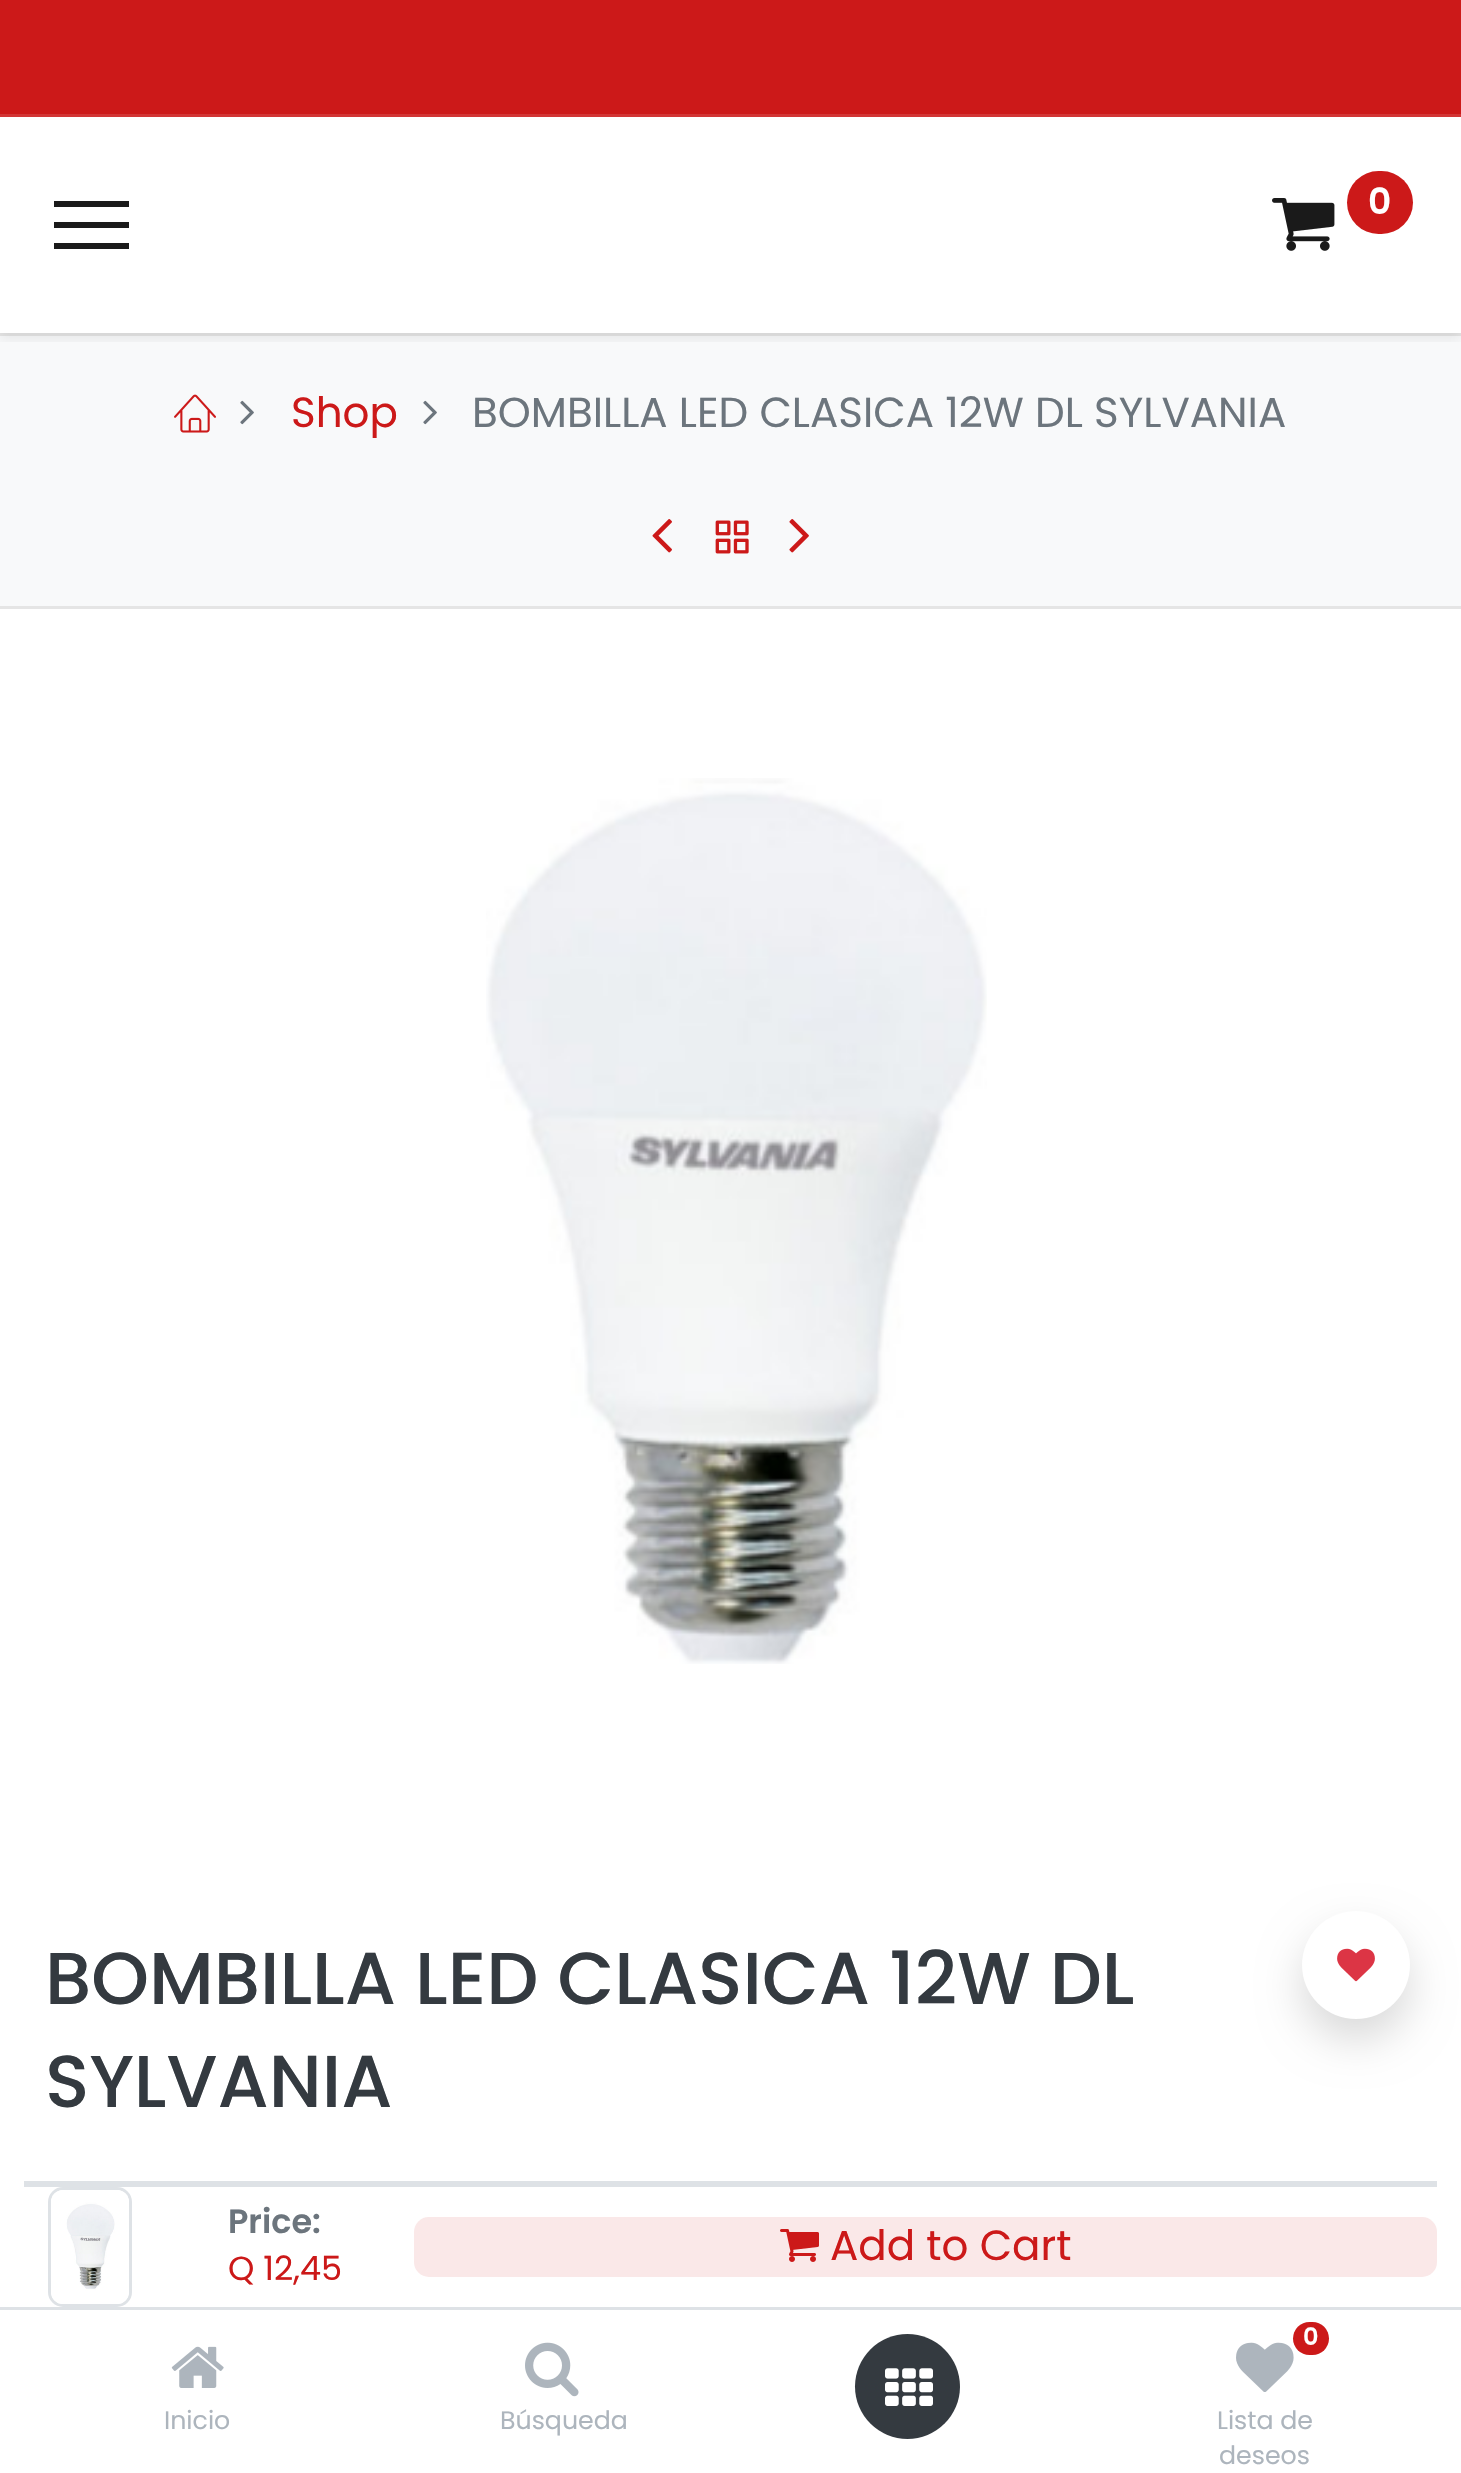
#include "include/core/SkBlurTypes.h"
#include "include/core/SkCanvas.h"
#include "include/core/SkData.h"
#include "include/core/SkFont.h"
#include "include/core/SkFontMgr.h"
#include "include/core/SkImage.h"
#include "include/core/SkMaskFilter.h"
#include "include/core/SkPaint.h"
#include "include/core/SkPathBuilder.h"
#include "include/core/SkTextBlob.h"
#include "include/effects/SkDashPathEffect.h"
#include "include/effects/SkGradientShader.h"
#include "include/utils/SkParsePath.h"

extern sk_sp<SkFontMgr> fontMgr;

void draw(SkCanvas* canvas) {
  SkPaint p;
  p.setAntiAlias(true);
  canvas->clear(SK_ColorWHITE);
  p.setColor(SkColorSetRGB(204, 25, 25));
  canvas->drawRect(SkRect::MakeLTRB(0, 0, 1461, 114), p);
  p.setColor(SkColorSetRGB(210, 53, 53));
  canvas->drawRect(SkRect::MakeLTRB(0, 114, 1461, 117), p);
  p.setColor(SkColorSetRGB(248, 249, 250));
  canvas->drawRect(SkRect::MakeLTRB(0, 336, 1461, 606), p);
  p.setColor(SkColorSetRGB(229, 229, 229));
  canvas->drawRect(SkRect::MakeLTRB(0, 333, 1461, 336), p);
  canvas->save();
  canvas->clipRect(SkRect::MakeLTRB(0, 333, 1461, 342));
  p.setColor(SkColorSetARGB(18, 0, 0, 0));
  p.setMaskFilter(SkMaskFilter::MakeBlur(kNormal_SkBlurStyle, 6));
  canvas->drawRect(SkRect::MakeLTRB(0, 123, 1461, 339), p);
  p.setMaskFilter(nullptr);
  canvas->restore();
  p.setColor(SkColorSetRGB(26, 26, 26));
  canvas->drawRect(SkRect::MakeLTRB(54, 201, 129, 207), p);
  canvas->drawRect(SkRect::MakeLTRB(54, 222, 129, 228), p);
  canvas->drawRect(SkRect::MakeLTRB(54, 243, 129, 249), p);
  canvas->drawImageRect(SkImages::DeferredFromEncodedData(SkData::MakeFromFileName("images/1.png")), SkRect::MakeLTRB(1272, 198, 1335, 251), SkSamplingOptions());
  p.setColor(SkColorSetRGB(204, 25, 25));
  canvas->drawRoundRect(SkRect::MakeLTRB(1347, 171, 1413, 234), 31.5f, 31.5f, p);
  p.setColor(SkColorSetRGB(229, 229, 229));
  canvas->drawRect(SkRect::MakeLTRB(0, 606, 1461, 609), p);
  canvas->drawImageRect(SkImages::DeferredFromEncodedData(SkData::MakeFromFileName("images/2.png")), SkRect::MakeLTRB(174, 394, 216, 433), SkSamplingOptions());
  canvas->drawImageRect(SkImages::DeferredFromEncodedData(SkData::MakeFromFileName("images/3.png")), SkRect::MakeLTRB(240, 400, 254, 425), SkSamplingOptions());
  canvas->drawImageRect(SkImages::DeferredFromEncodedData(SkData::MakeFromFileName("images/3.png")), SkRect::MakeLTRB(423, 400, 437, 425), SkSamplingOptions());
  canvas->drawImageRect(SkImages::DeferredFromEncodedData(SkData::MakeFromFileName("images/4.png")), SkRect::MakeLTRB(652, 519, 672, 553), SkSamplingOptions());
  canvas->drawImageRect(SkImages::DeferredFromEncodedData(SkData::MakeFromFileName("images/5.png")), SkRect::MakeLTRB(715, 520, 749, 554), SkSamplingOptions());
  canvas->drawImageRect(SkImages::DeferredFromEncodedData(SkData::MakeFromFileName("images/6.png")), SkRect::MakeLTRB(789, 519, 809, 553), SkSamplingOptions());
  canvas->drawImageRect(SkImages::DeferredFromEncodedData(SkData::MakeFromFileName("images/7.png")), SkRect::MakeLTRB(486, 778, 987, 1664), SkSamplingOptions());
  p.setColor(SkColorSetARGB(38, 0, 0, 0));
  p.setMaskFilter(SkMaskFilter::MakeBlur(kNormal_SkBlurStyle, 21.5f));
  canvas->drawRoundRect(SkRect::MakeLTRB(1302, 1932, 1410, 2040), 54, 54, p);
  p.setMaskFilter(nullptr);
  p.setColor(SK_ColorWHITE);
  canvas->drawCircle(1356, 1965, 54, p);
  canvas->drawImageRect(SkImages::DeferredFromEncodedData(SkData::MakeFromFileName("images/8.png")), SkRect::MakeLTRB(1337, 1948, 1375, 1982), SkSamplingOptions());
  p.setColor(SkColorSetRGB(222, 226, 230));
  canvas->drawRect(SkRect::MakeLTRB(24, 2181, 1437, 2187), p);
  canvas->drawRect(SkRect::MakeLTRB(0, 2307, 1461, 2310), p);
  p.setStyle(SkPaint::kStroke_Style);
  p.setStrokeWidth(3);
  canvas->drawRoundRect(SkRect::MakeLTRB(49.5f, 2188.5f, 130.5f, 2305.5f), 13.5f, 13.5f, p);
  canvas->drawImageRect(SkImages::DeferredFromEncodedData(SkData::MakeFromFileName("images/9.png")), SkRect::MakeLTRB(51, 2190, 129, 2304), SkSamplingOptions());
  p.setStyle(SkPaint::kFill_Style);
  p.setColor(SkColorSetRGB(250, 232, 232));
  canvas->drawRoundRect(SkRect::MakeLTRB(414, 2217, 1437, 2277), 15, 15, p);
  canvas->drawImageRect(SkImages::DeferredFromEncodedData(SkData::MakeFromFileName("images/10.png")), SkRect::MakeLTRB(780, 2229, 819, 2262), SkSamplingOptions());
  canvas->drawImageRect(SkImages::DeferredFromEncodedData(SkData::MakeFromFileName("images/11.png")), SkRect::MakeLTRB(171, 2346, 224, 2388), SkSamplingOptions());
  canvas->drawImageRect(SkImages::DeferredFromEncodedData(SkData::MakeFromFileName("images/12.png")), SkRect::MakeLTRB(525, 2342, 579, 2397), SkSamplingOptions());
  p.setColor(SkColorSetRGB(52, 58, 64));
  canvas->drawCircle(907.5f, 2386.5f, 52.5f, p);
  canvas->drawImageRect(SkImages::DeferredFromEncodedData(SkData::MakeFromFileName("images/13.png")), SkRect::MakeLTRB(885, 2368, 933, 2406), SkSamplingOptions());
  canvas->drawImageRect(SkImages::DeferredFromEncodedData(SkData::MakeFromFileName("images/14.png")), SkRect::MakeLTRB(1236, 2342, 1294, 2392), SkSamplingOptions());
  p.setColor(SkColorSetRGB(204, 25, 25));
  canvas->drawRoundRect(SkRect::MakeLTRB(1293, 2322, 1329, 2355), 16.5f, 16.5f, p);
  SkFont font1(fontMgr->matchFamilyStyle("Poppins", SkFontStyle(600, SkFontStyle::kNormal_Width, SkFontStyle::kUpright_Slant)), 36);
  font1.setSubpixel(true);
  p.setColor(SK_ColorWHITE);
  canvas->drawString("0", 1368, 214, font1, p);
  SkFont font2(fontMgr->matchFamilyStyle("Poppins", SkFontStyle::Normal()), 42);
  font2.setSubpixel(true);
  p.setColor(SkColorSetRGB(204, 25, 25));
  canvas->drawString("Shop", 291, 427, font2, p);
  p.setColor(SkColorSetRGB(108, 117, 125));
  canvas->drawString("BOMBILLA LED CLASICA 12W DL SYLVANIA", 472, 427, font2, p);
  SkFont font3(fontMgr->matchFamilyStyle("Poppins", SkFontStyle(500, SkFontStyle::kNormal_Width, SkFontStyle::kUpright_Slant)), 73.5f);
  font3.setSubpixel(true);
  p.setColor(SkColorSetRGB(52, 58, 64));
  canvas->drawString("BOMBILLA LED CLASICA 12W DL", 45, 2004, font3, p);
  canvas->drawString("SYLVANIA", 45, 2107, font3, p);
  SkFont font4(fontMgr->matchFamilyStyle("Poppins", SkFontStyle(600, SkFontStyle::kNormal_Width, SkFontStyle::kUpright_Slant)), 33.5f);
  font4.setSubpixel(true);
  p.setColor(SkColorSetRGB(108, 117, 125));
  canvas->drawString("Price:", 228, 2233, font4, p);
  SkFont font5(fontMgr->matchFamilyStyle("Poppins", SkFontStyle::Normal()), 33.5f);
  font5.setSubpixel(true);
  p.setColor(SkColorSetRGB(204, 25, 25));
  canvas->drawString("Q 12,45", 228, 2280, font5, p);
  canvas->drawString("Add to Cart", 830, 2260, font2, p);
  SkFont font6(fontMgr->matchFamilyStyle("Poppins", SkFontStyle::Normal()), 25.25f);
  font6.setSubpixel(true);
  p.setColor(SkColorSetRGB(173, 181, 189));
  canvas->drawString("Inicio", 164, 2429, font6, p);
  canvas->drawString("Búsqueda", 500, 2429, font6, p);
  SkFont font7(fontMgr->matchFamilyStyle("Poppins", SkFontStyle(600, SkFontStyle::kNormal_Width, SkFontStyle::kUpright_Slant)), 24);
  font7.setSubpixel(true);
  p.setColor(SK_ColorWHITE);
  canvas->drawString("0", 1303, 2345, font7, p);
  p.setColor(SkColorSetRGB(173, 181, 189));
  canvas->drawString("Lista de", 1217, 2429, font6, p);
  canvas->drawString("deseos", 1219, 2464, font6, p);
}
